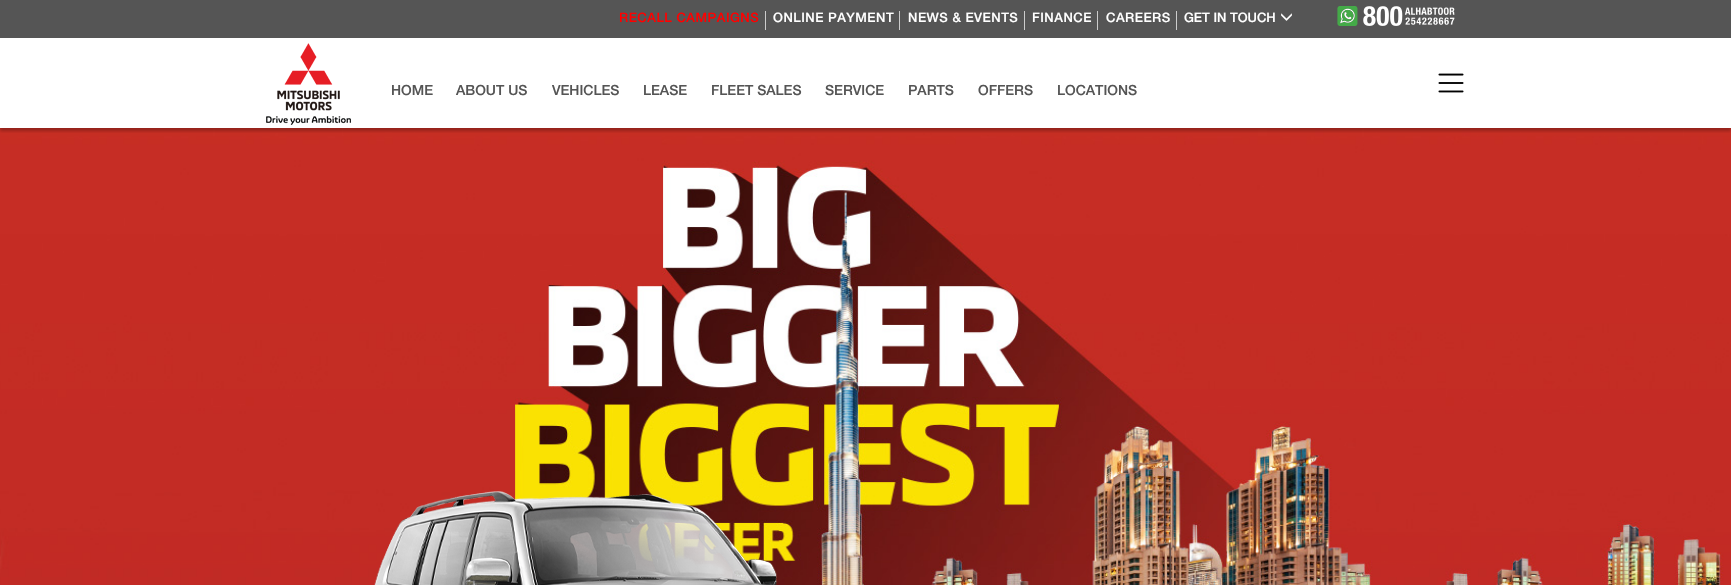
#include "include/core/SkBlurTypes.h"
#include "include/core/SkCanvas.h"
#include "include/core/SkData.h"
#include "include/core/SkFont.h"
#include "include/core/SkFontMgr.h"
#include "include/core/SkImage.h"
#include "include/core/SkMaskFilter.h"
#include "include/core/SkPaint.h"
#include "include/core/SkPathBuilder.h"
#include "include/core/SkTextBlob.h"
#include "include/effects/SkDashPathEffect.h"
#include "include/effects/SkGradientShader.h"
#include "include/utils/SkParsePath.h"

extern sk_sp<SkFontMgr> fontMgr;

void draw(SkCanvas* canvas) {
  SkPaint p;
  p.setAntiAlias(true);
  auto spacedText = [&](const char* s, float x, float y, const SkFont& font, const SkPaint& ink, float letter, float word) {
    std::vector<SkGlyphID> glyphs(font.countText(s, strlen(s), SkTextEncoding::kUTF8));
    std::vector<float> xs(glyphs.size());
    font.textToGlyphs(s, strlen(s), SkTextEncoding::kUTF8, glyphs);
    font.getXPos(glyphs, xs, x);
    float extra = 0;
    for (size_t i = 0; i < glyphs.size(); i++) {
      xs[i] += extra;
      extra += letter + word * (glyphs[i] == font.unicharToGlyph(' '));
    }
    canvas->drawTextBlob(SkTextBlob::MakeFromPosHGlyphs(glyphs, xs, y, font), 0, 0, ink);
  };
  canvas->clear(SK_ColorWHITE);
  p.setColor(SkColorSetRGB(85, 85, 85));
  canvas->drawRect(SkRect::MakeLTRB(0, 0, 1731, 38), p);
  p.setColor(SkColorSetRGB(204, 204, 204));
  canvas->drawRect(SkRect::MakeLTRB(765, 11, 766, 30), p);
  canvas->drawRect(SkRect::MakeLTRB(899, 11, 900, 30), p);
  canvas->drawRect(SkRect::MakeLTRB(1024, 11, 1025, 30), p);
  canvas->drawRect(SkRect::MakeLTRB(1097, 11, 1098, 30), p);
  canvas->drawRect(SkRect::MakeLTRB(1176, 11, 1177, 30), p);
  canvas->drawImageRect(SkImages::DeferredFromEncodedData(SkData::MakeFromFileName("images/1.png")), SkRect::MakeLTRB(1281, 13, 1292, 21), SkSamplingOptions());
  canvas->drawImageRect(SkImages::DeferredFromEncodedData(SkData::MakeFromFileName("images/2.png")), SkRect::MakeLTRB(1337, 6, 1455, 26), SkSamplingOptions());
  canvas->drawImageRect(SkImages::DeferredFromEncodedData(SkData::MakeFromFileName("images/5.png")), SkRect::MakeLTRB(0, 128, 1731, 585), SkSamplingOptions());
  canvas->save();
  canvas->clipRect(SkRect::MakeLTRB(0, 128, 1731, 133));
  p.setColor(SkColorSetARGB(64, 0, 0, 0));
  p.setMaskFilter(SkMaskFilter::MakeBlur(kNormal_SkBlurStyle, 1.5f));
  canvas->drawRect(SkRect::MakeLTRB(0, 41, 1731, 131), p);
  p.setMaskFilter(nullptr);
  canvas->restore();
  canvas->drawImageRect(SkImages::DeferredFromEncodedData(SkData::MakeFromFileName("images/3.png")), SkRect::MakeLTRB(266, 43, 351, 125), SkSamplingOptions());
  canvas->drawImageRect(SkImages::DeferredFromEncodedData(SkData::MakeFromFileName("images/4.png")), SkRect::MakeLTRB(1438, 73, 1464, 93), SkSamplingOptions());
  canvas->drawImageRect(SkImages::DeferredFromEncodedData(SkData::MakeFromFileName("images/6.png")), SkRect::MakeLTRB(374, 491, 777, 585), SkSamplingOptions());
  SkFont font1(fontMgr->matchFamilyStyle("Helvetica Neue", SkFontStyle(500, SkFontStyle::kNormal_Width, SkFontStyle::kUpright_Slant)), 13);
  font1.setSubpixel(true);
  p.setColor(SkColorSetRGB(255, 0, 0));
  spacedText("RECALL CAMPAIGNS", 619, 22, font1, p, 0.5f, 0);
  p.setColor(SK_ColorWHITE);
  spacedText("ONLINE PAYMENT", 773, 22, font1, p, 0.5f, 0);
  spacedText("NEWS & EVENTS", 908, 22, font1, p, 0.5f, 0);
  spacedText("FINANCE", 1032, 22, font1, p, 0.5f, 0);
  spacedText("CAREERS", 1106, 22, font1, p, 0.5f, 0);
  canvas->drawString("GET IN TOUCH", 1184, 22, font1, p);
  SkFont font2(fontMgr->matchFamilyStyle("Helvetica Neue", SkFontStyle(500, SkFontStyle::kNormal_Width, SkFontStyle::kUpright_Slant)), 14);
  font2.setSubpixel(true);
  p.setColor(SkColorSetRGB(85, 85, 85));
  canvas->drawString("HOME", 391, 95, font2, p);
  canvas->drawString("ABOUT US", 456, 95, font2, p);
  canvas->drawString("VEHICLES", 552, 95, font2, p);
  canvas->drawString("LEASE", 643, 95, font2, p);
  canvas->drawString("FLEET SALES", 711, 95, font2, p);
  canvas->drawString("SERVICE", 825, 95, font2, p);
  canvas->drawString("PARTS", 908, 95, font2, p);
  canvas->drawString("OFFERS", 978, 95, font2, p);
  canvas->drawString("LOCATIONS", 1057, 95, font2, p);
}
